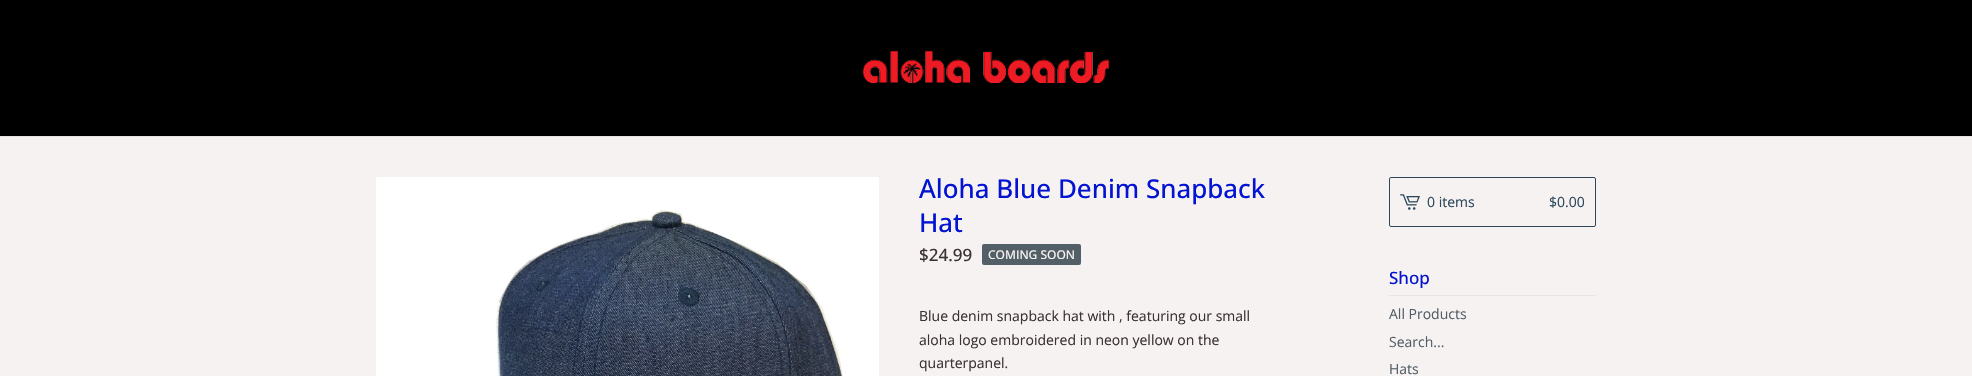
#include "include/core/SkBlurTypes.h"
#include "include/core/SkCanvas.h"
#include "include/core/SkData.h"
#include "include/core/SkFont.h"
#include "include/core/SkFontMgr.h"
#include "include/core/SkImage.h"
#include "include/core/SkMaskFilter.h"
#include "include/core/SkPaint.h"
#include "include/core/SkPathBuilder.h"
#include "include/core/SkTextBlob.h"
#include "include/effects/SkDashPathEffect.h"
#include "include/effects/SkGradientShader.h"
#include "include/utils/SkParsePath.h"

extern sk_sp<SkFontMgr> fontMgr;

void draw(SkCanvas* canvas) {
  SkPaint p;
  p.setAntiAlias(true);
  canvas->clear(SkColorSetRGB(247, 242, 242));
  p.setColor(SK_ColorBLACK);
  canvas->drawRect(SkRect::MakeLTRB(0, 0, 1972, 136), p);
  p.setColor(SkColorSetRGB(229, 229, 229));
  canvas->drawRect(SkRect::MakeLTRB(0, 136, 1972, 137), p);
  canvas->drawImageRect(SkImages::DeferredFromEncodedData(SkData::MakeFromFileName("images/1.png")), SkRect::MakeLTRB(862, 50, 1110, 83), SkSamplingOptions());
  canvas->drawImageRect(SkImages::DeferredFromEncodedData(SkData::MakeFromFileName("images/2.png")), SkRect::MakeLTRB(376, 177, 879, 376), SkSamplingOptions());
  p.setColor(SkColorSetRGB(83, 95, 102));
  canvas->drawRoundRect(SkRect::MakeLTRB(982, 244, 1081, 265), 2, 2, p);
  p.setStyle(SkPaint::kStroke_Style);
  p.setStrokeWidth(1);
  p.setColor(SkColorSetRGB(43, 71, 89));
  canvas->drawRoundRect(SkRect::MakeLTRB(1389.5f, 177.5f, 1595.5f, 226.5f), 1.5f, 1.5f, p);
  canvas->drawImageRect(SkImages::DeferredFromEncodedData(SkData::MakeFromFileName("images/3.png")), SkRect::MakeLTRB(1400, 194, 1420, 210), SkSamplingOptions());
  p.setStyle(SkPaint::kFill_Style);
  p.setColor(SkColorSetRGB(229, 229, 229));
  canvas->drawRect(SkRect::MakeLTRB(1389, 295, 1596, 296), p);
  SkFont font1(fontMgr->matchFamilyStyle("Open Sans", SkFontStyle(500, SkFontStyle::kNormal_Width, SkFontStyle::kUpright_Slant)), 26);
  font1.setSubpixel(true);
  p.setColor(SkColorSetRGB(2, 20, 209));
  canvas->drawString("Aloha Blue Denim Snapback", 919, 198, font1, p);
  canvas->drawString("Hat", 919, 232, font1, p);
  SkFont font2(fontMgr->matchFamilyStyle("Open Sans", SkFontStyle(500, SkFontStyle::kNormal_Width, SkFontStyle::kUpright_Slant)), 17);
  font2.setSubpixel(true);
  p.setColor(SkColorSetRGB(59, 50, 50));
  canvas->drawString("$24.99", 919, 261, font2, p);
  SkFont font3(fontMgr->matchFamilyStyle("Open Sans", SkFontStyle(500, SkFontStyle::kNormal_Width, SkFontStyle::kUpright_Slant)), 12);
  font3.setSubpixel(true);
  p.setColor(SkColorSetRGB(247, 242, 242));
  canvas->drawString("COMING SOON", 988, 259, font3, p);
  SkFont font4(fontMgr->matchFamilyStyle("Open Sans", SkFontStyle::Normal()), 14);
  font4.setSubpixel(true);
  p.setColor(SkColorSetRGB(59, 50, 50));
  canvas->drawString("Blue denim snapback hat with , featuring our small", 919, 321, font4, p);
  canvas->drawString("aloha logo embroidered in neon yellow on the", 919, 345, font4, p);
  canvas->drawString("quarterpanel.", 919, 368, font4, p);
  p.setColor(SkColorSetRGB(43, 71, 89));
  canvas->drawString("0 items", 1427, 207, font4, p);
  canvas->drawString("$0.00", 1549, 207, font4, p);
  p.setColor(SkColorSetRGB(2, 20, 209));
  canvas->drawString("Shop", 1389, 284, font2, p);
  p.setColor(SkColorSetRGB(83, 95, 102));
  canvas->drawString("All Products", 1389, 319, font4, p);
  canvas->drawString("Search...", 1389, 347, font4, p);
  canvas->drawString("Hats", 1389, 374, font4, p);
}
